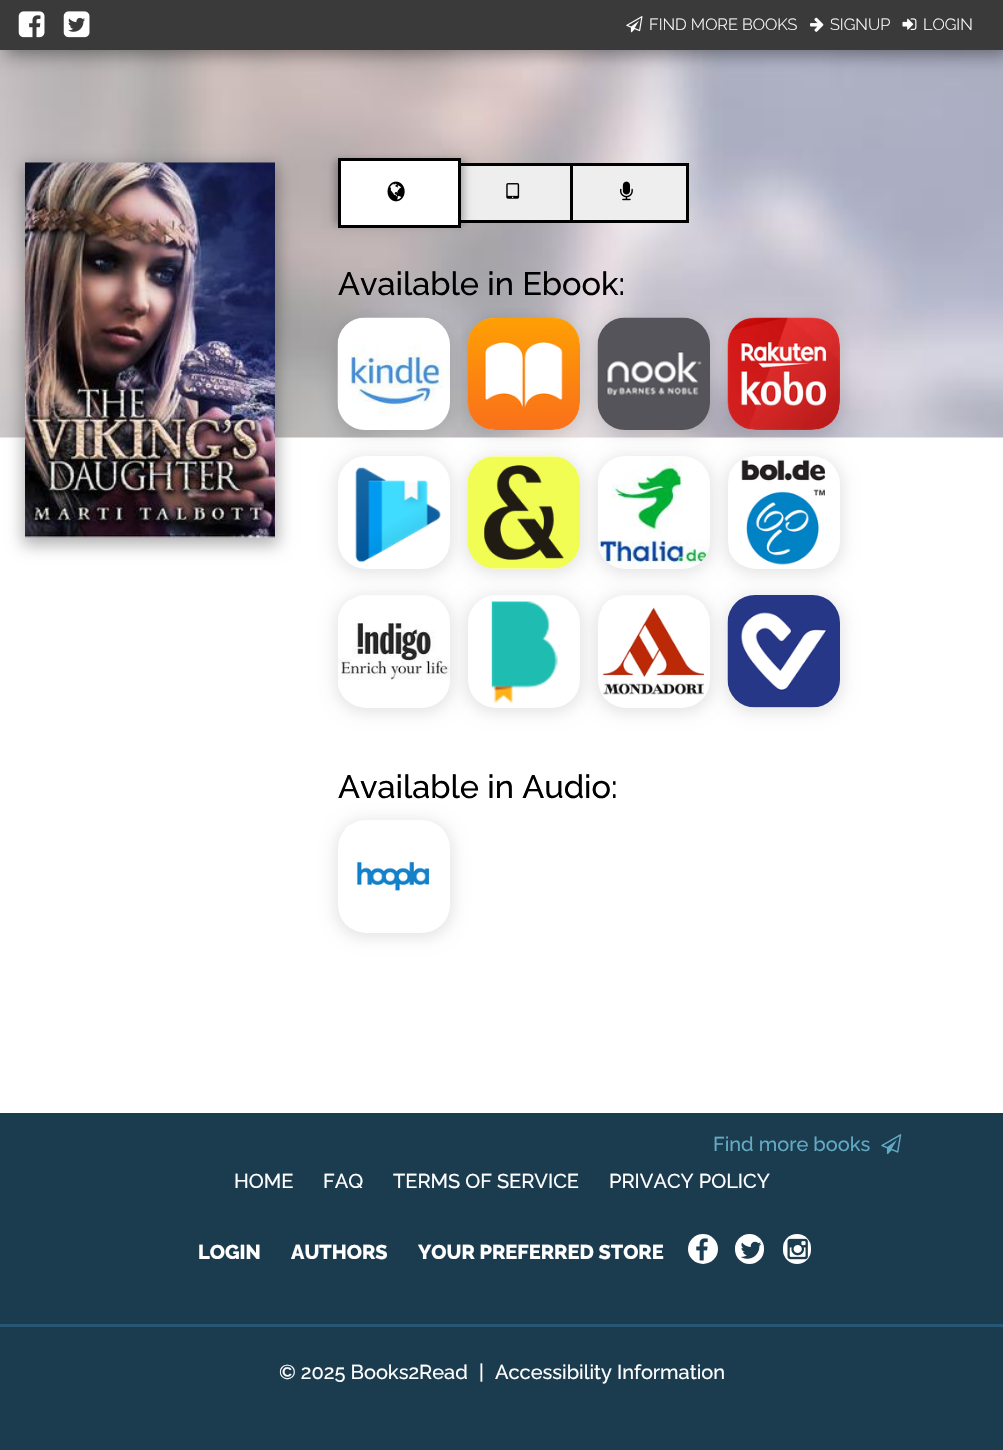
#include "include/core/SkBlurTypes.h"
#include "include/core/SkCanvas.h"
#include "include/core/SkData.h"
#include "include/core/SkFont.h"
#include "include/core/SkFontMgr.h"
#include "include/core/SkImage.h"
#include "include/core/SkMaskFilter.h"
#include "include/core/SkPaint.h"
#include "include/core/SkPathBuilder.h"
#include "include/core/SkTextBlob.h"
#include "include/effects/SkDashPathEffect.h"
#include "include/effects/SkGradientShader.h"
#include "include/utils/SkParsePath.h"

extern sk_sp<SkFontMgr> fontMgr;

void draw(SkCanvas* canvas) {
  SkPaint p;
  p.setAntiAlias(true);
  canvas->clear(SK_ColorWHITE);
  canvas->drawImageRect(SkImages::DeferredFromEncodedData(SkData::MakeFromFileName("images/1.png")), SkRect::MakeLTRB(0, 50, 1003, 438), SkSamplingOptions());
  p.setColor(SkColorSetARGB(102, 0, 0, 0));
  p.setMaskFilter(SkMaskFilter::MakeBlur(kNormal_SkBlurStyle, 9));
  canvas->drawRect(SkRect::MakeLTRB(5, 5, 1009, 55), p);
  p.setMaskFilter(nullptr);
  p.setColor(SkColorSetRGB(58, 58, 58));
  canvas->drawRect(SkRect::MakeLTRB(0, 0, 1003, 50), p);
  canvas->drawImageRect(SkImages::DeferredFromEncodedData(SkData::MakeFromFileName("images/2.png")), SkRect::MakeLTRB(18, 11, 45, 38), SkSamplingOptions());
  canvas->drawImageRect(SkImages::DeferredFromEncodedData(SkData::MakeFromFileName("images/3.png")), SkRect::MakeLTRB(63, 11, 90, 38), SkSamplingOptions());
  canvas->drawImageRect(SkImages::DeferredFromEncodedData(SkData::MakeFromFileName("images/4.png")), SkRect::MakeLTRB(626, 16, 643, 33), SkSamplingOptions());
  canvas->drawImageRect(SkImages::DeferredFromEncodedData(SkData::MakeFromFileName("images/5.png")), SkRect::MakeLTRB(810, 17, 824, 32), SkSamplingOptions());
  canvas->drawImageRect(SkImages::DeferredFromEncodedData(SkData::MakeFromFileName("images/6.png")), SkRect::MakeLTRB(902, 18, 917, 30), SkSamplingOptions());
  p.setColor(SkColorSetARGB(77, 0, 0, 0));
  p.setMaskFilter(SkMaskFilter::MakeBlur(kNormal_SkBlurStyle, 7.5f));
  canvas->drawRect(SkRect::MakeLTRB(23, 165, 278, 545), p);
  p.setMaskFilter(nullptr);
  canvas->drawImageRect(SkImages::DeferredFromEncodedData(SkData::MakeFromFileName("images/7.png")), SkRect::MakeLTRB(25, 162, 275, 538), SkSamplingOptions());
  p.setColor(SkColorSetRGB(238, 238, 238));
  canvas->drawRect(SkRect::MakeLTRB(461, 166, 570, 220), p);
  p.setStyle(SkPaint::kStroke_Style);
  p.setStrokeWidth(3);
  p.setColor(SK_ColorBLACK);
  canvas->drawRect(SkRect::MakeLTRB(457.5f, 164.5f, 573.5f, 221.5f), p);
  p.setStyle(SkPaint::kFill_Style);
  p.setColor(SkColorSetARGB(77, 0, 0, 0));
  p.setMaskFilter(SkMaskFilter::MakeBlur(kNormal_SkBlurStyle, 4));
  canvas->drawRect(SkRect::MakeLTRB(335, 160, 464, 225), p);
  p.setMaskFilter(nullptr);
  p.setColor(SK_ColorWHITE);
  canvas->drawRect(SkRect::MakeLTRB(339.5f, 159.5f, 459.5f, 226.5f), p);
  p.setStyle(SkPaint::kStroke_Style);
  p.setColor(SK_ColorBLACK);
  canvas->drawRect(SkRect::MakeLTRB(339.5f, 159.5f, 459.5f, 226.5f), p);
  canvas->drawImageRect(SkImages::DeferredFromEncodedData(SkData::MakeFromFileName("images/8.png")), SkRect::MakeLTRB(387, 181, 405, 202), SkSamplingOptions());
  canvas->drawImageRect(SkImages::DeferredFromEncodedData(SkData::MakeFromFileName("images/9.png")), SkRect::MakeLTRB(506, 183, 520, 199), SkSamplingOptions());
  p.setStyle(SkPaint::kFill_Style);
  p.setColor(SkColorSetRGB(238, 238, 238));
  canvas->drawRect(SkRect::MakeLTRB(571.5f, 164.5f, 687.5f, 221.5f), p);
  p.setStyle(SkPaint::kStroke_Style);
  p.setColor(SK_ColorBLACK);
  canvas->drawRect(SkRect::MakeLTRB(571.5f, 164.5f, 687.5f, 221.5f), p);
  canvas->drawImageRect(SkImages::DeferredFromEncodedData(SkData::MakeFromFileName("images/10.png")), SkRect::MakeLTRB(620, 181, 633, 201), SkSamplingOptions());
  p.setStyle(SkPaint::kFill_Style);
  p.setColor(SkColorSetARGB(26, 0, 0, 0));
  p.setMaskFilter(SkMaskFilter::MakeBlur(kNormal_SkBlurStyle, 7.5f));
  canvas->drawRoundRect(SkRect::MakeLTRB(335, 318, 453, 435), 30, 30, p);
  p.setMaskFilter(nullptr);
  canvas->drawImageRect(SkImages::DeferredFromEncodedData(SkData::MakeFromFileName("images/11.png")), SkRect::MakeLTRB(337, 317, 450, 430), SkSamplingOptions());
  p.setMaskFilter(SkMaskFilter::MakeBlur(kNormal_SkBlurStyle, 7.5f));
  canvas->drawRoundRect(SkRect::MakeLTRB(465, 318, 583, 435), 30, 30, p);
  p.setMaskFilter(nullptr);
  p.setColor(SK_ColorWHITE);
  canvas->drawRoundRect(SkRect::MakeLTRB(468, 318, 580, 430), 28, 28, p);
  canvas->drawImageRect(SkImages::DeferredFromEncodedData(SkData::MakeFromFileName("images/12.png")), SkRect::MakeLTRB(467, 317, 580, 430), SkSamplingOptions());
  p.setColor(SkColorSetARGB(26, 0, 0, 0));
  p.setMaskFilter(SkMaskFilter::MakeBlur(kNormal_SkBlurStyle, 7.5f));
  canvas->drawRoundRect(SkRect::MakeLTRB(595, 318, 713, 435), 30, 30, p);
  p.setMaskFilter(nullptr);
  canvas->drawImageRect(SkImages::DeferredFromEncodedData(SkData::MakeFromFileName("images/13.png")), SkRect::MakeLTRB(597, 317, 710, 430), SkSamplingOptions());
  p.setMaskFilter(SkMaskFilter::MakeBlur(kNormal_SkBlurStyle, 7.5f));
  canvas->drawRoundRect(SkRect::MakeLTRB(725, 318, 843, 435), 30, 30, p);
  p.setMaskFilter(nullptr);
  p.setColor(SK_ColorWHITE);
  canvas->drawRoundRect(SkRect::MakeLTRB(728, 318, 840, 430), 28, 28, p);
  canvas->drawImageRect(SkImages::DeferredFromEncodedData(SkData::MakeFromFileName("images/14.png")), SkRect::MakeLTRB(727, 317, 840, 430), SkSamplingOptions());
  p.setColor(SkColorSetARGB(26, 0, 0, 0));
  p.setMaskFilter(SkMaskFilter::MakeBlur(kNormal_SkBlurStyle, 7.5f));
  canvas->drawRoundRect(SkRect::MakeLTRB(335, 456, 453, 574), 30, 30, p);
  p.setMaskFilter(nullptr);
  p.setColor(SK_ColorWHITE);
  canvas->drawRoundRect(SkRect::MakeLTRB(338, 456, 450, 569), 28, 28, p);
  p.setColor(SkColorSetARGB(26, 0, 0, 0));
  p.setMaskFilter(SkMaskFilter::MakeBlur(kNormal_SkBlurStyle, 7.5f));
  canvas->drawRoundRect(SkRect::MakeLTRB(465, 456, 583, 574), 30, 30, p);
  p.setMaskFilter(nullptr);
  p.setColor(SK_ColorWHITE);
  canvas->drawRoundRect(SkRect::MakeLTRB(468, 456, 580, 569), 28, 28, p);
  canvas->drawImageRect(SkImages::DeferredFromEncodedData(SkData::MakeFromFileName("images/15.png")), SkRect::MakeLTRB(467, 456, 580, 569), SkSamplingOptions());
  p.setColor(SkColorSetARGB(26, 0, 0, 0));
  p.setMaskFilter(SkMaskFilter::MakeBlur(kNormal_SkBlurStyle, 7.5f));
  canvas->drawRoundRect(SkRect::MakeLTRB(595, 456, 713, 574), 30, 30, p);
  p.setMaskFilter(nullptr);
  p.setColor(SK_ColorWHITE);
  canvas->drawRoundRect(SkRect::MakeLTRB(598, 456, 710, 569), 28, 28, p);
  canvas->drawImageRect(SkImages::DeferredFromEncodedData(SkData::MakeFromFileName("images/16.png")), SkRect::MakeLTRB(598, 456, 710, 569), SkSamplingOptions());
  p.setColor(SkColorSetARGB(26, 0, 0, 0));
  p.setMaskFilter(SkMaskFilter::MakeBlur(kNormal_SkBlurStyle, 7.5f));
  canvas->drawRoundRect(SkRect::MakeLTRB(725, 456, 843, 574), 30, 30, p);
  p.setMaskFilter(nullptr);
  p.setColor(SK_ColorWHITE);
  canvas->drawRoundRect(SkRect::MakeLTRB(728, 456, 840, 569), 28, 28, p);
  canvas->drawImageRect(SkImages::DeferredFromEncodedData(SkData::MakeFromFileName("images/17.png")), SkRect::MakeLTRB(355, 467, 441, 562), SkSamplingOptions());
  canvas->drawImageRect(SkImages::DeferredFromEncodedData(SkData::MakeFromFileName("images/18.png")), SkRect::MakeLTRB(729, 459, 826, 565), SkSamplingOptions());
  p.setColor(SkColorSetARGB(26, 0, 0, 0));
  p.setMaskFilter(SkMaskFilter::MakeBlur(kNormal_SkBlurStyle, 7.5f));
  canvas->drawRoundRect(SkRect::MakeLTRB(335, 595, 453, 713), 30, 30, p);
  p.setMaskFilter(nullptr);
  p.setColor(SK_ColorWHITE);
  canvas->drawRoundRect(SkRect::MakeLTRB(338, 595, 450, 708), 28, 28, p);
  canvas->drawImageRect(SkImages::DeferredFromEncodedData(SkData::MakeFromFileName("images/20.png")), SkRect::MakeLTRB(338, 600, 450, 700), SkSamplingOptions());
  p.setColor(SkColorSetARGB(26, 0, 0, 0));
  p.setMaskFilter(SkMaskFilter::MakeBlur(kNormal_SkBlurStyle, 7.5f));
  canvas->drawRoundRect(SkRect::MakeLTRB(465, 595, 583, 713), 30, 30, p);
  p.setMaskFilter(nullptr);
  p.setColor(SK_ColorWHITE);
  canvas->drawRoundRect(SkRect::MakeLTRB(468, 595, 580, 708), 28, 28, p);
  p.setColor(SkColorSetARGB(26, 0, 0, 0));
  p.setMaskFilter(SkMaskFilter::MakeBlur(kNormal_SkBlurStyle, 7.5f));
  canvas->drawRoundRect(SkRect::MakeLTRB(595, 595, 713, 713), 30, 30, p);
  p.setMaskFilter(nullptr);
  p.setColor(SK_ColorWHITE);
  canvas->drawRoundRect(SkRect::MakeLTRB(598, 595, 710, 708), 28, 28, p);
  canvas->drawImageRect(SkImages::DeferredFromEncodedData(SkData::MakeFromFileName("images/22.png")), SkRect::MakeLTRB(602, 600, 704, 700), SkSamplingOptions());
  p.setColor(SkColorSetARGB(26, 0, 0, 0));
  p.setMaskFilter(SkMaskFilter::MakeBlur(kNormal_SkBlurStyle, 7.5f));
  canvas->drawRoundRect(SkRect::MakeLTRB(725, 595, 843, 713), 30, 30, p);
  p.setMaskFilter(nullptr);
  p.setColor(SK_ColorWHITE);
  canvas->drawRoundRect(SkRect::MakeLTRB(728, 595, 840, 708), 28, 28, p);
  canvas->drawImageRect(SkImages::DeferredFromEncodedData(SkData::MakeFromFileName("images/19.png")), SkRect::MakeLTRB(727, 595, 840, 708), SkSamplingOptions());
  canvas->drawImageRect(SkImages::DeferredFromEncodedData(SkData::MakeFromFileName("images/21.png")), SkRect::MakeLTRB(491, 601, 558, 703), SkSamplingOptions());
  p.setColor(SkColorSetARGB(26, 0, 0, 0));
  p.setMaskFilter(SkMaskFilter::MakeBlur(kNormal_SkBlurStyle, 7.5f));
  canvas->drawRoundRect(SkRect::MakeLTRB(335, 820, 453, 938), 30, 30, p);
  p.setMaskFilter(nullptr);
  p.setColor(SK_ColorWHITE);
  canvas->drawRoundRect(SkRect::MakeLTRB(338, 820, 450, 933), 28, 28, p);
  canvas->drawImageRect(SkImages::DeferredFromEncodedData(SkData::MakeFromFileName("images/23.png")), SkRect::MakeLTRB(345, 825, 430, 925), SkSamplingOptions());
  p.setColor(SkColorSetRGB(27, 59, 79));
  canvas->drawRect(SkRect::MakeLTRB(0, 1113, 1003, 1450), p);
  canvas->drawImageRect(SkImages::DeferredFromEncodedData(SkData::MakeFromFileName("images/24.png")), SkRect::MakeLTRB(881, 1134, 902, 1155), SkSamplingOptions());
  p.setColor(SK_ColorWHITE);
  canvas->drawCircle(703, 1249, 15, p);
  canvas->drawImageRect(SkImages::DeferredFromEncodedData(SkData::MakeFromFileName("images/25.png")), SkRect::MakeLTRB(696, 1238, 708, 1261), SkSamplingOptions());
  canvas->drawRoundRect(SkRect::MakeLTRB(735, 1234, 764, 1264), 14.5f, 14.5f, p);
  canvas->drawImageRect(SkImages::DeferredFromEncodedData(SkData::MakeFromFileName("images/26.png")), SkRect::MakeLTRB(740, 1241, 762, 1259), SkSamplingOptions());
  canvas->drawRoundRect(SkRect::MakeLTRB(783, 1234, 811, 1264), 14, 14, p);
  canvas->drawImageRect(SkImages::DeferredFromEncodedData(SkData::MakeFromFileName("images/27.png")), SkRect::MakeLTRB(787, 1238, 808, 1260), SkSamplingOptions());
  p.setColor(SkColorSetRGB(40, 87, 117));
  canvas->drawRect(SkRect::MakeLTRB(0, 1324, 1003, 1327), p);
  SkFont font1(fontMgr->matchFamilyStyle("Raleway", SkFontStyle(300, SkFontStyle::kNormal_Width, SkFontStyle::kUpright_Slant)), 16.25f);
  font1.setSubpixel(true);
  p.setColor(SK_ColorWHITE);
  canvas->drawString("FIND MORE BOOKS", 649, 30, font1, p);
  canvas->drawString("SIGNUP", 830, 30, font1, p);
  canvas->drawString("LOGIN", 923, 30, font1, p);
  SkFont font2(fontMgr->matchFamilyStyle("Raleway", SkFontStyle(500, SkFontStyle::kNormal_Width, SkFontStyle::kUpright_Slant)), 32.5f);
  font2.setSubpixel(true);
  p.setColor(SK_ColorBLACK);
  canvas->drawString("Available in Ebook:", 338, 295, font2, p);
  canvas->drawString("Available in Audio:", 338, 798, font2, p);
  SkFont font3(fontMgr->matchFamilyStyle("Raleway", SkFontStyle(500, SkFontStyle::kNormal_Width, SkFontStyle::kUpright_Slant)), 20);
  font3.setSubpixel(true);
  p.setColor(SkColorSetRGB(99, 170, 197));
  canvas->drawString("Find more books", 713, 1151, font3, p);
  p.setColor(SK_ColorWHITE);
  canvas->drawString("HOME", 234, 1188, font3, p);
  canvas->drawString("FAQ", 323, 1188, font3, p);
  canvas->drawString("TERMS OF SERVICE", 393, 1188, font3, p);
  canvas->drawString("PRIVACY POLICY", 609, 1188, font3, p);
  SkFont font4(fontMgr->matchFamilyStyle("Raleway", SkFontStyle(800, SkFontStyle::kNormal_Width, SkFontStyle::kUpright_Slant)), 20);
  font4.setSubpixel(true);
  canvas->drawString("LOGIN", 198, 1259, font4, p);
  canvas->drawString("AUTHORS", 291, 1259, font4, p);
  canvas->drawString("YOUR PREFERRED STORE", 418, 1259, font4, p);
  canvas->drawString("© 2025 Books2Read", 279, 1379, font3, p);
  canvas->drawString("|", 479, 1379, font3, p);
  canvas->drawString("Accessibility Information", 495, 1379, font3, p);
}
